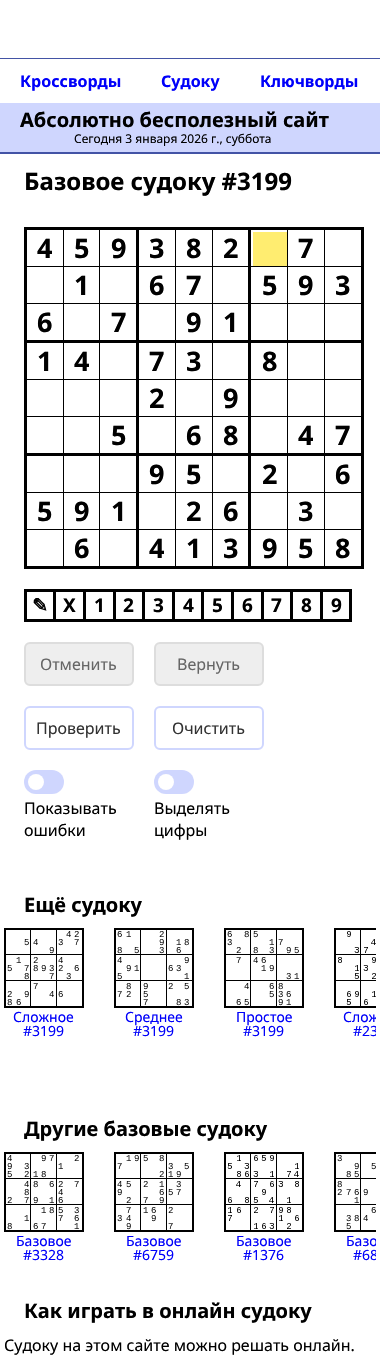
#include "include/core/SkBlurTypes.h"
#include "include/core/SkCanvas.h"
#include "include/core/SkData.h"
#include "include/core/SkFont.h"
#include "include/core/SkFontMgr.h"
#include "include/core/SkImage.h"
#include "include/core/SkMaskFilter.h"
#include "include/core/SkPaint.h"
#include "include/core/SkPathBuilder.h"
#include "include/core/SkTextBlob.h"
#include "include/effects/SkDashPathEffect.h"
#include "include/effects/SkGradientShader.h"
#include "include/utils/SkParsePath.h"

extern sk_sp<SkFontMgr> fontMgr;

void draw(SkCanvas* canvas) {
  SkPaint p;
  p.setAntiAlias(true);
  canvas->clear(SK_ColorWHITE);
  p.setColor(SkColorSetRGB(67, 83, 165));
  canvas->drawRect(SkRect::MakeLTRB(0, 58, 380, 59), p);
  p.setColor(SkColorSetRGB(207, 214, 254));
  canvas->drawRect(SkRect::MakeLTRB(0, 103, 380, 105), p);
  canvas->drawRect(SkRect::MakeLTRB(0, 105, 380, 152), p);
  p.setColor(SkColorSetRGB(67, 83, 165));
  canvas->drawRect(SkRect::MakeLTRB(0, 152, 380, 154), p);
  p.setColor(SkColorSetRGB(255, 237, 112));
  canvas->drawRect(SkRect::MakeLTRB(253, 232, 287, 266), p);
  p.setColor(SK_ColorBLACK);
  canvas->drawRect(SkRect::MakeLTRB(324, 266, 363, 267), p);
  canvas->drawRect(SkRect::MakeLTRB(324, 303, 363, 304), p);
  canvas->drawRect(SkRect::MakeLTRB(324, 379, 363, 380), p);
  canvas->drawRect(SkRect::MakeLTRB(324, 416, 363, 417), p);
  canvas->drawRect(SkRect::MakeLTRB(324, 492, 363, 493), p);
  canvas->drawRect(SkRect::MakeLTRB(324, 529, 363, 530), p);
  canvas->drawRect(SkRect::MakeLTRB(324, 529, 325, 568), p);
  canvas->drawRect(SkRect::MakeLTRB(287, 529, 325, 530), p);
  canvas->drawRect(SkRect::MakeLTRB(324, 492, 325, 530), p);
  canvas->drawRect(SkRect::MakeLTRB(287, 492, 325, 493), p);
  canvas->drawRect(SkRect::MakeLTRB(324, 454, 325, 493), p);
  canvas->drawRect(SkRect::MakeLTRB(324, 416, 325, 455), p);
  canvas->drawRect(SkRect::MakeLTRB(287, 416, 325, 417), p);
  canvas->drawRect(SkRect::MakeLTRB(324, 379, 325, 417), p);
  canvas->drawRect(SkRect::MakeLTRB(287, 379, 325, 380), p);
  canvas->drawRect(SkRect::MakeLTRB(324, 341, 325, 380), p);
  canvas->drawRect(SkRect::MakeLTRB(324, 303, 325, 342), p);
  canvas->drawRect(SkRect::MakeLTRB(287, 303, 325, 304), p);
  canvas->drawRect(SkRect::MakeLTRB(324, 266, 325, 304), p);
  canvas->drawRect(SkRect::MakeLTRB(287, 266, 325, 267), p);
  canvas->drawRect(SkRect::MakeLTRB(324, 228, 325, 267), p);
  canvas->drawRect(SkRect::MakeLTRB(287, 529, 288, 568), p);
  canvas->drawRect(SkRect::MakeLTRB(212, 529, 288, 530), p);
  canvas->drawRect(SkRect::MakeLTRB(287, 492, 288, 530), p);
  canvas->drawRect(SkRect::MakeLTRB(212, 492, 288, 493), p);
  canvas->drawRect(SkRect::MakeLTRB(287, 454, 288, 493), p);
  canvas->drawRect(SkRect::MakeLTRB(287, 416, 288, 455), p);
  canvas->drawRect(SkRect::MakeLTRB(212, 416, 288, 417), p);
  canvas->drawRect(SkRect::MakeLTRB(287, 379, 288, 417), p);
  canvas->drawRect(SkRect::MakeLTRB(212, 379, 288, 380), p);
  canvas->drawRect(SkRect::MakeLTRB(287, 341, 288, 380), p);
  canvas->drawRect(SkRect::MakeLTRB(287, 303, 288, 342), p);
  canvas->drawRect(SkRect::MakeLTRB(212, 303, 288, 304), p);
  canvas->drawRect(SkRect::MakeLTRB(287, 266, 288, 304), p);
  canvas->drawRect(SkRect::MakeLTRB(212, 266, 288, 267), p);
  canvas->drawRect(SkRect::MakeLTRB(287, 228, 288, 267), p);
  canvas->drawRect(SkRect::MakeLTRB(248, 227, 364, 230), p);
  canvas->drawRect(SkRect::MakeLTRB(212, 529, 213, 568), p);
  canvas->drawRect(SkRect::MakeLTRB(175, 529, 213, 530), p);
  canvas->drawRect(SkRect::MakeLTRB(212, 492, 213, 530), p);
  canvas->drawRect(SkRect::MakeLTRB(175, 492, 213, 493), p);
  canvas->drawRect(SkRect::MakeLTRB(212, 454, 213, 493), p);
  canvas->drawRect(SkRect::MakeLTRB(212, 416, 213, 455), p);
  canvas->drawRect(SkRect::MakeLTRB(175, 416, 213, 417), p);
  canvas->drawRect(SkRect::MakeLTRB(212, 379, 213, 417), p);
  canvas->drawRect(SkRect::MakeLTRB(175, 379, 213, 380), p);
  canvas->drawRect(SkRect::MakeLTRB(212, 341, 213, 380), p);
  canvas->drawRect(SkRect::MakeLTRB(212, 303, 213, 342), p);
  canvas->drawRect(SkRect::MakeLTRB(175, 303, 213, 304), p);
  canvas->drawRect(SkRect::MakeLTRB(175, 529, 176, 568), p);
  canvas->drawRect(SkRect::MakeLTRB(99, 529, 176, 530), p);
  canvas->drawRect(SkRect::MakeLTRB(175, 492, 176, 530), p);
  canvas->drawRect(SkRect::MakeLTRB(99, 492, 176, 493), p);
  canvas->drawRect(SkRect::MakeLTRB(175, 454, 176, 493), p);
  canvas->drawRect(SkRect::MakeLTRB(175, 416, 176, 455), p);
  canvas->drawRect(SkRect::MakeLTRB(99, 416, 176, 417), p);
  canvas->drawRect(SkRect::MakeLTRB(175, 379, 176, 417), p);
  canvas->drawRect(SkRect::MakeLTRB(99, 379, 176, 380), p);
  canvas->drawRect(SkRect::MakeLTRB(175, 341, 176, 380), p);
  canvas->drawRect(SkRect::MakeLTRB(175, 303, 176, 342), p);
  canvas->drawRect(SkRect::MakeLTRB(248, 340, 364, 343), p);
  canvas->drawRect(SkRect::MakeLTRB(248, 453, 364, 456), p);
  canvas->drawRect(SkRect::MakeLTRB(361, 491, 364, 569), p);
  canvas->drawRect(SkRect::MakeLTRB(248, 566, 364, 569), p);
  canvas->drawRect(SkRect::MakeLTRB(248, 491, 251, 569), p);
  canvas->drawRect(SkRect::MakeLTRB(248, 453, 251, 494), p);
  canvas->drawRect(SkRect::MakeLTRB(136, 453, 251, 456), p);
  canvas->drawRect(SkRect::MakeLTRB(248, 378, 251, 456), p);
  canvas->drawRect(SkRect::MakeLTRB(248, 340, 251, 381), p);
  canvas->drawRect(SkRect::MakeLTRB(136, 340, 251, 343), p);
  canvas->drawRect(SkRect::MakeLTRB(248, 265, 251, 343), p);
  canvas->drawRect(SkRect::MakeLTRB(248, 227, 251, 268), p);
  canvas->drawRect(SkRect::MakeLTRB(212, 266, 213, 304), p);
  canvas->drawRect(SkRect::MakeLTRB(175, 266, 213, 267), p);
  canvas->drawRect(SkRect::MakeLTRB(99, 303, 176, 304), p);
  canvas->drawRect(SkRect::MakeLTRB(175, 266, 176, 304), p);
  canvas->drawRect(SkRect::MakeLTRB(99, 266, 176, 267), p);
  canvas->drawRect(SkRect::MakeLTRB(99, 529, 100, 568), p);
  canvas->drawRect(SkRect::MakeLTRB(63, 529, 100, 530), p);
  canvas->drawRect(SkRect::MakeLTRB(99, 492, 100, 530), p);
  canvas->drawRect(SkRect::MakeLTRB(63, 492, 100, 493), p);
  canvas->drawRect(SkRect::MakeLTRB(99, 454, 100, 493), p);
  canvas->drawRect(SkRect::MakeLTRB(99, 416, 100, 455), p);
  canvas->drawRect(SkRect::MakeLTRB(63, 416, 100, 417), p);
  canvas->drawRect(SkRect::MakeLTRB(99, 379, 100, 417), p);
  canvas->drawRect(SkRect::MakeLTRB(63, 379, 100, 380), p);
  canvas->drawRect(SkRect::MakeLTRB(99, 341, 100, 380), p);
  canvas->drawRect(SkRect::MakeLTRB(99, 303, 100, 342), p);
  canvas->drawRect(SkRect::MakeLTRB(63, 303, 100, 304), p);
  canvas->drawRect(SkRect::MakeLTRB(99, 266, 100, 304), p);
  canvas->drawRect(SkRect::MakeLTRB(63, 266, 100, 267), p);
  canvas->drawRect(SkRect::MakeLTRB(63, 529, 64, 568), p);
  canvas->drawRect(SkRect::MakeLTRB(25, 529, 64, 530), p);
  canvas->drawRect(SkRect::MakeLTRB(63, 492, 64, 530), p);
  canvas->drawRect(SkRect::MakeLTRB(25, 492, 64, 493), p);
  canvas->drawRect(SkRect::MakeLTRB(63, 454, 64, 493), p);
  canvas->drawRect(SkRect::MakeLTRB(63, 416, 64, 455), p);
  canvas->drawRect(SkRect::MakeLTRB(25, 416, 64, 417), p);
  canvas->drawRect(SkRect::MakeLTRB(63, 379, 64, 417), p);
  canvas->drawRect(SkRect::MakeLTRB(25, 379, 64, 380), p);
  canvas->drawRect(SkRect::MakeLTRB(63, 341, 64, 380), p);
  canvas->drawRect(SkRect::MakeLTRB(63, 303, 64, 342), p);
  canvas->drawRect(SkRect::MakeLTRB(25, 303, 64, 304), p);
  canvas->drawRect(SkRect::MakeLTRB(63, 266, 64, 304), p);
  canvas->drawRect(SkRect::MakeLTRB(25, 266, 64, 267), p);
  canvas->drawRect(SkRect::MakeLTRB(63, 228, 64, 267), p);
  canvas->drawRect(SkRect::MakeLTRB(99, 228, 100, 267), p);
  canvas->drawRect(SkRect::MakeLTRB(175, 228, 176, 267), p);
  canvas->drawRect(SkRect::MakeLTRB(212, 228, 213, 267), p);
  canvas->drawRect(SkRect::MakeLTRB(136, 227, 251, 230), p);
  canvas->drawRect(SkRect::MakeLTRB(136, 566, 251, 569), p);
  canvas->drawRect(SkRect::MakeLTRB(136, 491, 139, 569), p);
  canvas->drawRect(SkRect::MakeLTRB(136, 453, 139, 494), p);
  canvas->drawRect(SkRect::MakeLTRB(24, 453, 139, 456), p);
  canvas->drawRect(SkRect::MakeLTRB(136, 378, 139, 456), p);
  canvas->drawRect(SkRect::MakeLTRB(136, 340, 139, 381), p);
  canvas->drawRect(SkRect::MakeLTRB(24, 340, 139, 343), p);
  canvas->drawRect(SkRect::MakeLTRB(136, 265, 139, 343), p);
  canvas->drawRect(SkRect::MakeLTRB(136, 227, 139, 268), p);
  canvas->drawRect(SkRect::MakeLTRB(24, 227, 139, 230), p);
  canvas->drawRect(SkRect::MakeLTRB(24, 566, 139, 569), p);
  canvas->drawRect(SkRect::MakeLTRB(24, 491, 27, 569), p);
  canvas->drawRect(SkRect::MakeLTRB(24, 378, 27, 494), p);
  canvas->drawRect(SkRect::MakeLTRB(24, 265, 27, 381), p);
  canvas->drawRect(SkRect::MakeLTRB(24, 227, 27, 268), p);
  canvas->drawRect(SkRect::MakeLTRB(361, 378, 364, 494), p);
  canvas->drawRect(SkRect::MakeLTRB(361, 265, 364, 381), p);
  canvas->drawRect(SkRect::MakeLTRB(361, 227, 364, 268), p);
  canvas->drawRect(SkRect::MakeLTRB(24, 589, 320, 592), p);
  canvas->drawRect(SkRect::MakeLTRB(24, 619, 320, 622), p);
  canvas->drawRect(SkRect::MakeLTRB(24, 589, 27, 622), p);
  canvas->drawRect(SkRect::MakeLTRB(53, 589, 56, 622), p);
  canvas->drawRect(SkRect::MakeLTRB(83, 589, 86, 622), p);
  canvas->drawRect(SkRect::MakeLTRB(113, 589, 116, 622), p);
  canvas->drawRect(SkRect::MakeLTRB(142, 589, 145, 622), p);
  canvas->drawRect(SkRect::MakeLTRB(172, 589, 175, 622), p);
  canvas->drawRect(SkRect::MakeLTRB(201, 589, 204, 622), p);
  canvas->drawRect(SkRect::MakeLTRB(231, 589, 234, 622), p);
  canvas->drawRect(SkRect::MakeLTRB(261, 589, 264, 622), p);
  canvas->drawRect(SkRect::MakeLTRB(290, 589, 293, 622), p);
  p.setStyle(SkPaint::kStroke_Style);
  p.setStrokeWidth(3);
  canvas->drawRect(SkRect::MakeLTRB(321.5f, 590.5f, 350.5f, 620.5f), p);
  p.setStyle(SkPaint::kFill_Style);
  p.setColor(SkColorSetRGB(238, 238, 238));
  canvas->drawRoundRect(SkRect::MakeLTRB(25, 643, 133, 685), 5, 5, p);
  p.setStyle(SkPaint::kStroke_Style);
  p.setStrokeWidth(2);
  p.setColor(SkColorSetRGB(221, 221, 221));
  canvas->drawRoundRect(SkRect::MakeLTRB(25, 643, 133, 685), 5, 5, p);
  p.setStyle(SkPaint::kFill_Style);
  p.setColor(SkColorSetRGB(238, 238, 238));
  canvas->drawRoundRect(SkRect::MakeLTRB(155, 643, 263, 685), 5, 5, p);
  p.setStyle(SkPaint::kStroke_Style);
  p.setColor(SkColorSetRGB(221, 221, 221));
  canvas->drawRoundRect(SkRect::MakeLTRB(155, 643, 263, 685), 5, 5, p);
  p.setColor(SkColorSetRGB(207, 214, 254));
  canvas->drawRoundRect(SkRect::MakeLTRB(25, 707, 133, 749), 5, 5, p);
  canvas->drawRoundRect(SkRect::MakeLTRB(155, 707, 263, 749), 5, 5, p);
  p.setStyle(SkPaint::kFill_Style);
  canvas->drawRoundRect(SkRect::MakeLTRB(24, 770, 64, 794), 12, 12, p);
  p.setColor(SK_ColorWHITE);
  canvas->drawCircle(36, 782, 8, p);
  p.setColor(SkColorSetRGB(207, 214, 254));
  canvas->drawRoundRect(SkRect::MakeLTRB(154, 770, 194, 794), 12, 12, p);
  p.setColor(SK_ColorWHITE);
  canvas->drawCircle(166, 782, 8, p);
  canvas->drawImageRect(SkImages::DeferredFromEncodedData(SkData::MakeFromFileName("images/1.png")), SkRect::MakeLTRB(4, 928, 84, 1008), SkSamplingOptions());
  canvas->drawImageRect(SkImages::DeferredFromEncodedData(SkData::MakeFromFileName("images/2.png")), SkRect::MakeLTRB(114, 928, 194, 1008), SkSamplingOptions());
  canvas->drawImageRect(SkImages::DeferredFromEncodedData(SkData::MakeFromFileName("images/3.png")), SkRect::MakeLTRB(224, 928, 304, 1008), SkSamplingOptions());
  canvas->drawImageRect(SkImages::DeferredFromEncodedData(SkData::MakeFromFileName("images/4.png")), SkRect::MakeLTRB(334, 928, 376, 1008), SkSamplingOptions());
  canvas->drawImageRect(SkImages::DeferredFromEncodedData(SkData::MakeFromFileName("images/5.png")), SkRect::MakeLTRB(4, 1152, 84, 1232), SkSamplingOptions());
  canvas->drawImageRect(SkImages::DeferredFromEncodedData(SkData::MakeFromFileName("images/6.png")), SkRect::MakeLTRB(114, 1152, 194, 1232), SkSamplingOptions());
  canvas->drawImageRect(SkImages::DeferredFromEncodedData(SkData::MakeFromFileName("images/7.png")), SkRect::MakeLTRB(224, 1152, 304, 1232), SkSamplingOptions());
  canvas->drawImageRect(SkImages::DeferredFromEncodedData(SkData::MakeFromFileName("images/8.png")), SkRect::MakeLTRB(334, 1152, 376, 1232), SkSamplingOptions());
  SkFont font1(fontMgr->matchFamilyStyle("Noto Sans", SkFontStyle::Bold()), 16);
  font1.setSubpixel(true);
  p.setColor(SkColorSetRGB(0, 0, 250));
  canvas->drawString("Кроссворды", 20, 87, font1, p);
  canvas->drawString("Судоку", 161, 87, font1, p);
  canvas->drawString("Ключворды", 260, 87, font1, p);
  SkFont font2(fontMgr->matchFamilyStyle("Noto Sans", SkFontStyle::Bold()), 20);
  font2.setSubpixel(true);
  p.setColor(SK_ColorBLACK);
  canvas->drawString("Абсолютно бесполезный сайт", 20, 127, font2, p);
  SkFont font3(fontMgr->matchFamilyStyle("Noto Sans", SkFontStyle::Normal()), 12);
  font3.setSubpixel(true);
  canvas->drawString("Сегодня 3 января 2026 г., суббота", 74, 143, font3, p);
  SkFont font4(fontMgr->matchFamilyStyle("Noto Sans", SkFontStyle::Bold()), 24);
  font4.setSubpixel(true);
  canvas->drawString("Базовое cудоку #3199", 24, 190, font4, p);
  SkFont font5(fontMgr->matchFamilyStyle("Noto Sans", SkFontStyle::Bold()), 27);
  font5.setSubpixel(true);
  canvas->drawString("4", 37, 258, font5, p);
  canvas->drawString("5", 74, 258, font5, p);
  canvas->drawString("9", 111, 258, font5, p);
  canvas->drawString("3", 149, 258, font5, p);
  canvas->drawString("8", 186, 258, font5, p);
  canvas->drawString("2", 223, 258, font5, p);
  canvas->drawString("7", 298, 258, font5, p);
  canvas->drawString("1", 74, 295, font5, p);
  canvas->drawString("6", 149, 295, font5, p);
  canvas->drawString("7", 186, 295, font5, p);
  canvas->drawString("5", 262, 295, font5, p);
  canvas->drawString("9", 298, 295, font5, p);
  canvas->drawString("3", 335, 295, font5, p);
  canvas->drawString("6", 37, 332, font5, p);
  canvas->drawString("9", 186, 332, font5, p);
  canvas->drawString("7", 111, 332, font5, p);
  canvas->drawString("1", 223, 332, font5, p);
  canvas->drawString("1", 37, 371, font5, p);
  canvas->drawString("4", 74, 371, font5, p);
  canvas->drawString("7", 149, 371, font5, p);
  canvas->drawString("3", 186, 371, font5, p);
  canvas->drawString("8", 262, 371, font5, p);
  canvas->drawString("2", 149, 408, font5, p);
  canvas->drawString("9", 223, 408, font5, p);
  canvas->drawString("6", 186, 445, font5, p);
  canvas->drawString("5", 111, 445, font5, p);
  canvas->drawString("8", 223, 445, font5, p);
  canvas->drawString("4", 298, 445, font5, p);
  canvas->drawString("7", 335, 445, font5, p);
  canvas->drawString("9", 149, 484, font5, p);
  canvas->drawString("5", 186, 484, font5, p);
  canvas->drawString("2", 262, 484, font5, p);
  canvas->drawString("6", 335, 484, font5, p);
  canvas->drawString("9", 74, 521, font5, p);
  canvas->drawString("2", 186, 521, font5, p);
  canvas->drawString("5", 37, 521, font5, p);
  canvas->drawString("1", 111, 521, font5, p);
  canvas->drawString("6", 223, 521, font5, p);
  canvas->drawString("3", 298, 521, font5, p);
  canvas->drawString("6", 74, 558, font5, p);
  canvas->drawString("4", 149, 558, font5, p);
  canvas->drawString("1", 186, 558, font5, p);
  canvas->drawString("3", 223, 558, font5, p);
  canvas->drawString("9", 262, 558, font5, p);
  canvas->drawString("5", 298, 558, font5, p);
  canvas->drawString("8", 335, 558, font5, p);
  SkFont font6(fontMgr->matchFamilyStyle("DejaVu Sans", SkFontStyle::Bold()), 19);
  font6.setSubpixel(true);
  canvas->drawString("✎", 32, 612, font6, p);
  SkFont font7(fontMgr->matchFamilyStyle("Noto Sans", SkFontStyle::Bold()), 19);
  font7.setSubpixel(true);
  canvas->drawString("X", 63, 612, font7, p);
  canvas->drawString("1", 94, 612, font7, p);
  canvas->drawString("2", 123, 612, font7, p);
  canvas->drawString("3", 153, 612, font7, p);
  canvas->drawString("4", 183, 612, font7, p);
  canvas->drawString("5", 212, 612, font7, p);
  canvas->drawString("6", 242, 612, font7, p);
  canvas->drawString("7", 271, 612, font7, p);
  canvas->drawString("8", 301, 612, font7, p);
  canvas->drawString("9", 331, 612, font7, p);
  SkFont font8(fontMgr->matchFamilyStyle("Noto Sans", SkFontStyle::Normal()), 16);
  font8.setSubpixel(true);
  p.setColor(SkColorSetRGB(102, 102, 102));
  canvas->drawString("Отменить", 40, 670, font8, p);
  canvas->drawString("Вернуть", 177, 670, font8, p);
  p.setColor(SkColorSetRGB(51, 51, 51));
  canvas->drawString("Проверить", 36, 734, font8, p);
  canvas->drawString("Очистить", 172, 734, font8, p);
  p.setColor(SK_ColorBLACK);
  canvas->drawString("Показывать", 24, 814, font8, p);
  canvas->drawString("ошибки", 24, 836, font8, p);
  canvas->drawString("Выделять", 154, 814, font8, p);
  canvas->drawString("цифры", 154, 836, font8, p);
  canvas->drawString("Ещё судоку", 24, 912, font2, p);
  SkFont font9(fontMgr->matchFamilyStyle("Noto Sans", SkFontStyle::Normal()), 14);
  font9.setSubpixel(true);
  p.setColor(SkColorSetRGB(0, 0, 250));
  canvas->drawString("Сложное", 13, 1022, font9, p);
  canvas->drawString("#3199", 23, 1036, font9, p);
  canvas->drawString("Среднее", 125, 1022, font9, p);
  canvas->drawString("#3199", 133, 1036, font9, p);
  canvas->drawString("Простое", 236, 1022, font9, p);
  canvas->drawString("#3199", 243, 1036, font9, p);
  canvas->save();
  canvas->clipRect(SkRect::MakeLTRB(4, 928, 376, 1053));
  canvas->drawString("Слож", 343, 1022, font9, p);
  canvas->drawString("#23", 353, 1036, font9, p);
  canvas->restore();
  p.setColor(SK_ColorBLACK);
  canvas->drawString("Другие базовые судоку", 24, 1136, font2, p);
  p.setColor(SkColorSetRGB(0, 0, 250));
  canvas->drawString("Базовое", 16, 1246, font9, p);
  canvas->drawString("#3328", 23, 1260, font9, p);
  canvas->drawString("Базовое", 126, 1246, font9, p);
  canvas->drawString("#6759", 133, 1260, font9, p);
  canvas->drawString("Базовое", 236, 1246, font9, p);
  canvas->drawString("#1376", 243, 1260, font9, p);
  canvas->save();
  canvas->clipRect(SkRect::MakeLTRB(4, 1152, 376, 1277));
  canvas->drawString("Базо", 346, 1246, font9, p);
  canvas->drawString("#68", 353, 1260, font9, p);
  canvas->restore();
  p.setColor(SK_ColorBLACK);
  canvas->drawString("Как играть в онлайн судоку", 24, 1318, font2, p);
  canvas->drawString("Судоку на этом сайте можно решать онлайн.", 4, 1351, font8, p);
}
